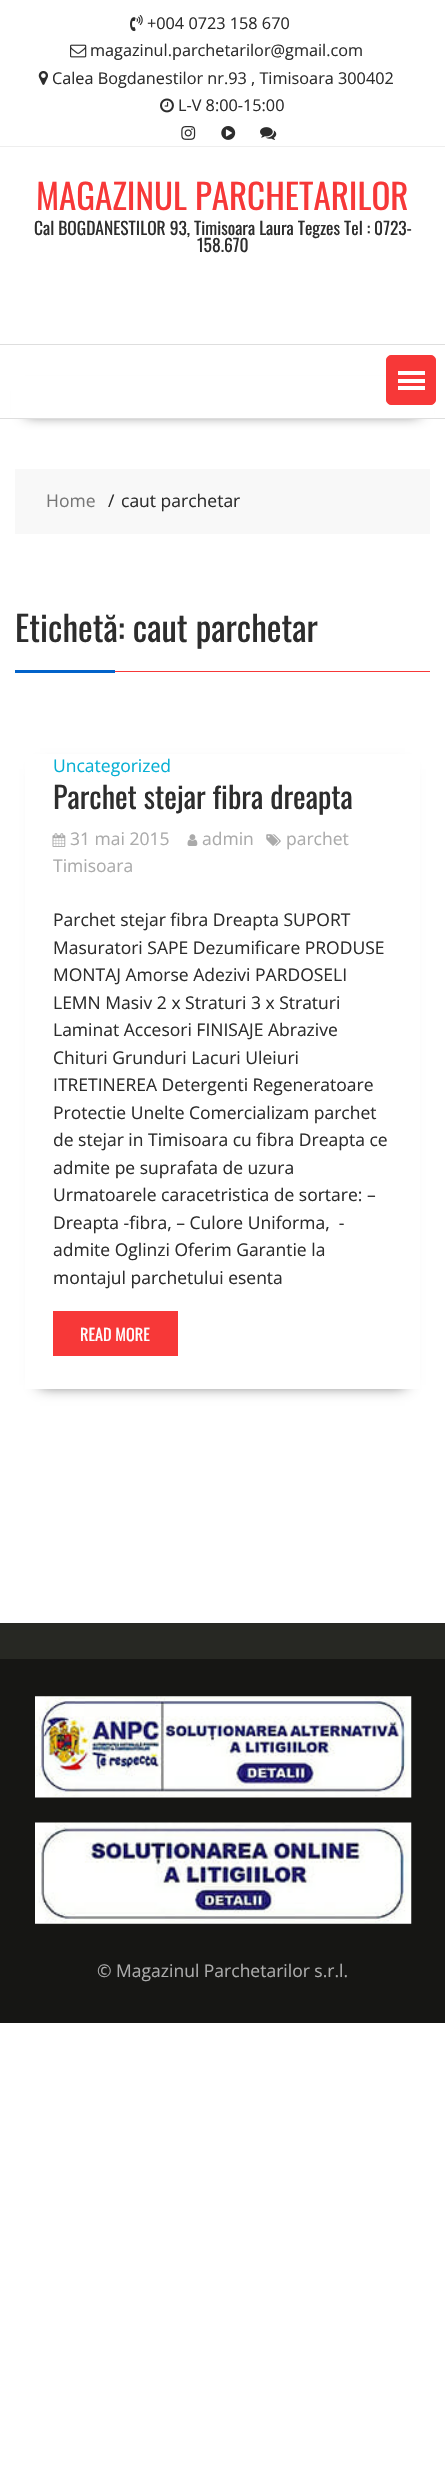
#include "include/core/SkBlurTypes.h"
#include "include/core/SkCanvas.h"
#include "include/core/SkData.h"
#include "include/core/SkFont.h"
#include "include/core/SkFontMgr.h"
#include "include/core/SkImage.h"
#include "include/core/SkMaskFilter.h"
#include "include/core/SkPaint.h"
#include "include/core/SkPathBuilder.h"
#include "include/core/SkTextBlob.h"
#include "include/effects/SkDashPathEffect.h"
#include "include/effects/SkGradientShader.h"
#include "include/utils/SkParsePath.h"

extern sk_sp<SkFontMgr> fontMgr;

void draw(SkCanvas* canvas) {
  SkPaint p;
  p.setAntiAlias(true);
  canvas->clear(SK_ColorWHITE);
  p.setColor(SkColorSetRGB(238, 238, 238));
  canvas->drawRect(SkRect::MakeLTRB(0, 146, 445, 147), p);
  canvas->drawImageRect(SkImages::DeferredFromEncodedData(SkData::MakeFromFileName("images/1.png")), SkRect::MakeLTRB(130, 15, 143, 32), SkSamplingOptions());
  canvas->drawImageRect(SkImages::DeferredFromEncodedData(SkData::MakeFromFileName("images/2.png")), SkRect::MakeLTRB(70, 44, 87, 58), SkSamplingOptions());
  canvas->drawImageRect(SkImages::DeferredFromEncodedData(SkData::MakeFromFileName("images/3.png")), SkRect::MakeLTRB(38, 71, 48, 85), SkSamplingOptions());
  canvas->drawImageRect(SkImages::DeferredFromEncodedData(SkData::MakeFromFileName("images/4.png")), SkRect::MakeLTRB(160, 98, 174, 113), SkSamplingOptions());
  canvas->drawImageRect(SkImages::DeferredFromEncodedData(SkData::MakeFromFileName("images/5.png")), SkRect::MakeLTRB(181, 126, 196, 140), SkSamplingOptions());
  canvas->drawImageRect(SkImages::DeferredFromEncodedData(SkData::MakeFromFileName("images/6.png")), SkRect::MakeLTRB(221, 126, 236, 140), SkSamplingOptions());
  canvas->drawImageRect(SkImages::DeferredFromEncodedData(SkData::MakeFromFileName("images/7.png")), SkRect::MakeLTRB(260, 127, 277, 140), SkSamplingOptions());
  p.setColor(SkColorSetARGB(191, 0, 0, 0));
  p.setMaskFilter(SkMaskFilter::MakeBlur(kNormal_SkBlurStyle, 7));
  canvas->drawRect(SkRect::MakeLTRB(26, 391, 419, 414), p);
  p.setMaskFilter(nullptr);
  p.setColor(SK_ColorWHITE);
  canvas->drawRect(SkRect::MakeLTRB(11, 376, 434, 418), p);
  p.setColor(SkColorSetRGB(222, 222, 222));
  canvas->drawRect(SkRect::MakeLTRB(0, 344, 445, 345), p);
  canvas->drawRect(SkRect::MakeLTRB(0, 418, 445, 419), p);
  p.setColor(SkColorSetRGB(247, 56, 56));
  canvas->drawRoundRect(SkRect::MakeLTRB(386.5f, 355.5f, 435.5f, 404.5f), 4.5f, 4.5f, p);
  p.setStyle(SkPaint::kStroke_Style);
  p.setStrokeWidth(1);
  canvas->drawRoundRect(SkRect::MakeLTRB(386.5f, 355.5f, 435.5f, 404.5f), 4.5f, 4.5f, p);
  p.setStyle(SkPaint::kFill_Style);
  p.setColor(SK_ColorWHITE);
  canvas->drawRect(SkRect::MakeLTRB(398, 386, 425, 390), p);
  canvas->drawRect(SkRect::MakeLTRB(398, 379, 425, 383), p);
  canvas->drawRect(SkRect::MakeLTRB(398, 371, 425, 375), p);
  p.setColor(SkColorSetRGB(248, 248, 248));
  canvas->drawRect(SkRect::MakeLTRB(15, 469, 430, 534), p);
  p.setColor(SkColorSetRGB(247, 56, 56));
  canvas->drawRect(SkRect::MakeLTRB(115, 671, 430, 672), p);
  p.setColor(SkColorSetRGB(2, 99, 202));
  canvas->drawRect(SkRect::MakeLTRB(15, 670, 115, 673), p);
  p.setColor(SkColorSetARGB(191, 0, 0, 0));
  p.setMaskFilter(SkMaskFilter::MakeBlur(kNormal_SkBlurStyle, 7));
  canvas->drawRect(SkRect::MakeLTRB(40, 769, 405, 1385), p);
  p.setMaskFilter(nullptr);
  p.setColor(SK_ColorWHITE);
  canvas->drawRect(SkRect::MakeLTRB(25, 754, 420, 1389), p);
  canvas->drawImageRect(SkImages::DeferredFromEncodedData(SkData::MakeFromFileName("images/8.png")), SkRect::MakeLTRB(266, 834, 281, 846), SkSamplingOptions());
  canvas->drawImageRect(SkImages::DeferredFromEncodedData(SkData::MakeFromFileName("images/9.png")), SkRect::MakeLTRB(52, 833, 66, 847), SkSamplingOptions());
  canvas->drawImageRect(SkImages::DeferredFromEncodedData(SkData::MakeFromFileName("images/10.png")), SkRect::MakeLTRB(187, 834, 198, 846), SkSamplingOptions());
  p.setColor(SkColorSetRGB(247, 56, 56));
  canvas->drawRect(SkRect::MakeLTRB(53, 1311, 178, 1356), p);
  p.setColor(SkColorSetRGB(39, 40, 35));
  canvas->drawRect(SkRect::MakeLTRB(0, 1623, 445, 1659), p);
  p.setColor(SkColorSetRGB(22, 22, 20));
  canvas->drawRect(SkRect::MakeLTRB(0, 1659, 445, 2023), p);
  canvas->drawImageRect(SkImages::DeferredFromEncodedData(SkData::MakeFromFileName("images/11.png")), SkRect::MakeLTRB(35, 1696, 412, 1798), SkSamplingOptions());
  canvas->drawImageRect(SkImages::DeferredFromEncodedData(SkData::MakeFromFileName("images/12.png")), SkRect::MakeLTRB(35, 1822, 412, 1924), SkSamplingOptions());
  SkFont font1(fontMgr->matchFamilyStyle("Open Sans", SkFontStyle::Normal()), 16.25f);
  font1.setSubpixel(true);
  p.setColor(SkColorSetRGB(45, 45, 45));
  canvas->drawString("+004 0723 158 670", 147, 29, font1, p);
  canvas->drawString("magazinul.parchetarilor@gmail.com", 90, 56, font1, p);
  canvas->drawString("Calea Bogdanestilor nr.93 , Timisoara 300402", 52, 84, font1, p);
  canvas->drawString("L-V 8:00-15:00", 178, 111, font1, p);
  SkFont font2(fontMgr->matchFamilyStyle("Oswald", SkFontStyle::Normal()), 35);
  font2.setSubpixel(true);
  p.setColor(SkColorSetRGB(247, 56, 56));
  canvas->drawString("MAGAZINUL PARCHETARILOR", 36, 210, font2, p);
  SkFont font3(fontMgr->matchFamilyStyle("Oswald", SkFontStyle::Normal()), 17.5f);
  font3.setSubpixel(true);
  p.setColor(SkColorSetRGB(45, 45, 45));
  canvas->drawString("Cal BOGDANESTILOR 93, Timisoara Laura Tegzes Tel : 0723-", 34, 235, font3, p);
  canvas->drawString("158.670", 197, 252, font3, p);
  SkFont font4(fontMgr->matchFamilyStyle("Open Sans", SkFontStyle::Normal()), 17.5f);
  font4.setSubpixel(true);
  p.setColor(SkColorSetRGB(119, 119, 119));
  canvas->drawString("Home", 46, 507, font4, p);
  p.setColor(SkColorSetRGB(45, 45, 45));
  canvas->drawString("/", 108, 507, font4, p);
  canvas->drawString("caut parchetar", 121, 507, font4, p);
  canvas->drawString("Etichetă: caut parchetar", 15, 642, font2, p);
  p.setColor(SkColorSetRGB(7, 175, 212));
  canvas->drawString("Uncategorized", 53, 772, font4, p);
  SkFont font5(fontMgr->matchFamilyStyle("Oswald", SkFontStyle::Normal()), 30);
  font5.setSubpixel(true);
  p.setColor(SkColorSetRGB(45, 45, 45));
  canvas->drawString("Parchet stejar fibra dreapta", 53, 809, font5, p);
  p.setColor(SkColorSetRGB(171, 171, 171));
  canvas->drawString("parchet", 286, 845, font4, p);
  canvas->drawString("Timisoara", 53, 872, font4, p);
  canvas->drawString("31 mai 2015", 70, 845, font4, p);
  canvas->drawString("admin", 202, 845, font4, p);
  p.setColor(SkColorSetRGB(45, 45, 45));
  canvas->drawString("Parchet stejar fibra Dreapta SUPORT", 53, 926, font4, p);
  canvas->drawString("Masuratori SAPE Dezumificare PRODUSE", 53, 954, font4, p);
  canvas->drawString("MONTAJ Amorse Adezivi PARDOSELI", 53, 981, font4, p);
  canvas->drawString("LEMN Masiv 2 x Straturi 3 x Straturi", 53, 1009, font4, p);
  canvas->drawString("Laminat Accesori FINISAJE Abrazive", 53, 1036, font4, p);
  canvas->drawString("Chituri Grunduri Lacuri Uleiuri", 53, 1064, font4, p);
  canvas->drawString("ITRETINEREA Detergenti Regeneratoare", 53, 1091, font4, p);
  canvas->drawString("Protectie Unelte Comercializam parchet", 53, 1119, font4, p);
  canvas->drawString("de stejar in Timisoara cu fibra Dreapta ce", 53, 1146, font4, p);
  canvas->drawString("admite pe suprafata de uzura", 53, 1174, font4, p);
  canvas->drawString("Urmatoarele caracetristica de sortare: –", 53, 1201, font4, p);
  canvas->drawString("Dreapta -fibra, – Culore Uniforma,  -", 53, 1229, font4, p);
  canvas->drawString("admite Oglinzi Oferim Garantie la", 53, 1256, font4, p);
  canvas->drawString("montajul parchetului esenta", 53, 1284, font4, p);
  SkFont font6(fontMgr->matchFamilyStyle("Oswald", SkFontStyle::Normal()), 16.25f);
  font6.setSubpixel(true);
  p.setColor(SK_ColorWHITE);
  canvas->drawString("READ MORE", 80, 1341, font6, p);
  p.setColor(SkColorSetRGB(171, 171, 171));
  canvas->drawString("© Magazinul Parchetarilor s.r.l.", 97, 1977, font4, p);
}
